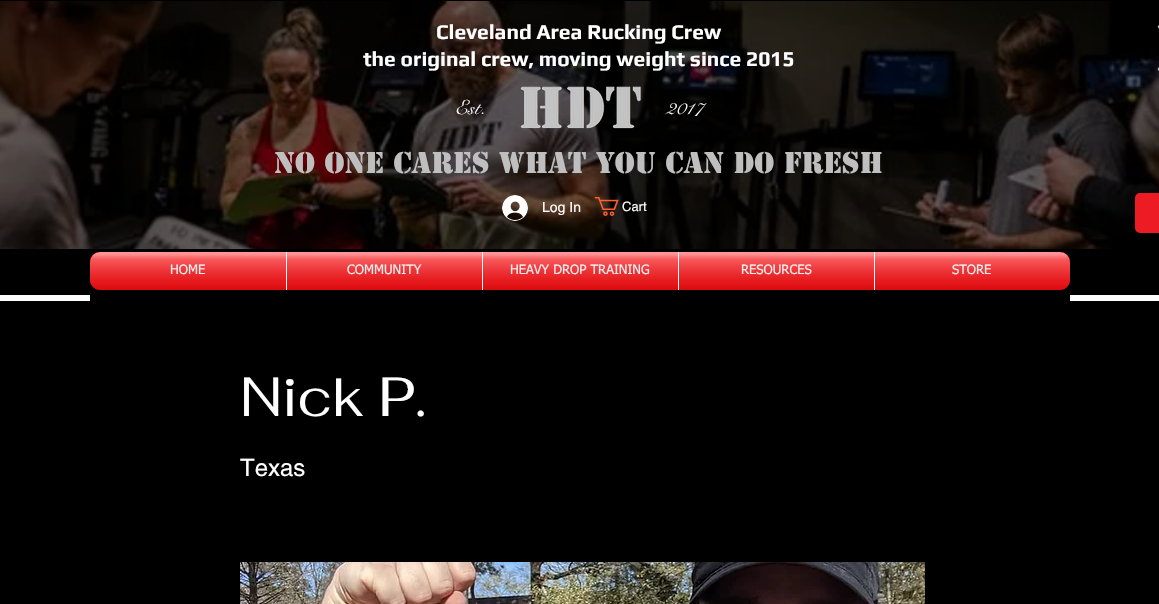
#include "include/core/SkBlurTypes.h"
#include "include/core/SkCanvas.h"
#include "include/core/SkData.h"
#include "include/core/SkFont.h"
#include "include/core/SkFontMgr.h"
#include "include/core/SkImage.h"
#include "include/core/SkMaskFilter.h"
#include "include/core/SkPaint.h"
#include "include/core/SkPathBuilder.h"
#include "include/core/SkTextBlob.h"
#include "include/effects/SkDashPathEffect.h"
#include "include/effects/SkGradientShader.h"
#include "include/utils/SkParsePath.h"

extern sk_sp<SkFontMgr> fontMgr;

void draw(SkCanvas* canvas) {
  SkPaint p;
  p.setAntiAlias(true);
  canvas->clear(SK_ColorWHITE);
  p.setColor(SK_ColorBLACK);
  canvas->drawRect(SkRect::MakeLTRB(0, 0, 1159, 295), p);
  canvas->drawImageRect(SkImages::DeferredFromEncodedData(SkData::MakeFromFileName("images/1.png")), SkRect::MakeLTRB(0, 1, 1159, 249), SkSamplingOptions());
  canvas->drawImageRect(SkImages::DeferredFromEncodedData(SkData::MakeFromFileName("images/2.png")), SkRect::MakeLTRB(1157, 25, 1159, 71), SkSamplingOptions());
  canvas->drawImageRect(SkImages::DeferredFromEncodedData(SkData::MakeFromFileName("images/3.png")), SkRect::MakeLTRB(520, 86, 642, 129), SkSamplingOptions());
  canvas->drawImageRect(SkImages::DeferredFromEncodedData(SkData::MakeFromFileName("images/4.png")), SkRect::MakeLTRB(502, 195, 528, 221), SkSamplingOptions());
  canvas->drawImageRect(SkImages::DeferredFromEncodedData(SkData::MakeFromFileName("images/5.png")), SkRect::MakeLTRB(595, 197, 619, 216), SkSamplingOptions());
  p.setColor(SkColorSetRGB(237, 28, 36));
  canvas->drawRoundRect(SkRect::MakeLTRB(1135, 193, 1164, 233), 5, 5, p);
  canvas->drawImageRect(SkImages::DeferredFromEncodedData(SkData::MakeFromFileName("images/6.png")), SkRect::MakeLTRB(90, 252, 1070, 290), SkSamplingOptions());
  canvas->drawImageRect(SkImages::DeferredFromEncodedData(SkData::MakeFromFileName("images/7.png")), SkRect::MakeLTRB(90, 261, 1070, 290), SkSamplingOptions());
  p.setColor(SkColorSetRGB(255, 0, 4));
  canvas->drawPath(SkPathBuilder().moveTo(100, 252).lineTo(286, 252).lineTo(286, 290).lineTo(100, 290).cubicTo(94.5f, 290, 90, 285.5f, 90, 280).lineTo(90, 262).cubicTo(90, 256.5f, 94.5f, 252, 100, 252).close().detach(), p);
  canvas->drawRect(SkRect::MakeLTRB(287, 252, 482, 290), p);
  p.setColor(SK_ColorWHITE);
  canvas->drawRect(SkRect::MakeLTRB(286, 252, 287, 290), p);
  p.setColor(SkColorSetRGB(255, 0, 4));
  canvas->drawRect(SkRect::MakeLTRB(483, 252, 678, 290), p);
  p.setColor(SK_ColorWHITE);
  canvas->drawRect(SkRect::MakeLTRB(482, 252, 483, 290), p);
  p.setColor(SkColorSetRGB(255, 0, 4));
  canvas->drawRect(SkRect::MakeLTRB(679, 252, 874, 290), p);
  p.setColor(SK_ColorWHITE);
  canvas->drawRect(SkRect::MakeLTRB(678, 252, 679, 290), p);
  p.setColor(SkColorSetRGB(255, 0, 4));
  canvas->drawPath(SkPathBuilder().moveTo(874, 252).lineTo(1060, 252).cubicTo(1065.5f, 252, 1070, 256.5f, 1070, 262).lineTo(1070, 280).cubicTo(1070, 285.5f, 1065.5f, 290, 1060, 290).lineTo(874, 290).close().detach(), p);
  p.setColor(SK_ColorWHITE);
  canvas->drawRect(SkRect::MakeLTRB(874, 252, 875, 290), p);
  p.setColor(SK_ColorBLACK);
  canvas->drawRect(SkRect::MakeLTRB(90, 295, 1070, 301), p);
  canvas->drawRect(SkRect::MakeLTRB(0, 301, 1159, 604), p);
  canvas->drawImageRect(SkImages::DeferredFromEncodedData(SkData::MakeFromFileName("images/18.png")), SkRect::MakeLTRB(240, 562, 925, 604), SkSamplingOptions());
  SkFont font1(fontMgr->matchFamilyStyle("Play", SkFontStyle::Bold()), 21);
  font1.setSubpixel(true);
  p.setColor(SK_ColorWHITE);
  canvas->drawString("Cleveland Area Rucking Crew", 436, 39, font1, p);
  canvas->drawString("the original crew, moving weight since 2015", 363, 66, font1, p);
  SkFont font2(fontMgr->matchFamilyStyle("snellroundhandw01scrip", SkFontStyle::Normal()), 20);
  font2.setSubpixel(true);
  canvas->drawString("Est.                                    2017", 455, 114, font2, p);
  SkFont font3(fontMgr->matchFamilyStyle("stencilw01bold", SkFontStyle::Bold()), 28);
  font3.setSubpixel(true);
  p.setColor(SkColorSetRGB(191, 191, 191));
  canvas->drawString("No one cares what you can do fresh", 274, 173, font3, p);
  SkFont font4(fontMgr->matchFamilyStyle("helvetica", SkFontStyle::Normal()), 14);
  font4.setSubpixel(true);
  p.setColor(SK_ColorWHITE);
  canvas->drawString("Log In", 542, 212, font4, p);
  SkFont font5(fontMgr->matchFamilyStyle("helvetica", SkFontStyle::Normal()), 13);
  font5.setSubpixel(true);
  canvas->drawString("Cart", 622, 211, font5, p);
  SkFont font6(fontMgr->matchFamilyStyle("tahoma", SkFontStyle::Normal()), 13);
  font6.setSubpixel(true);
  canvas->drawString("HOME", 170, 274, font6, p);
  canvas->drawImageRect(SkImages::DeferredFromEncodedData(SkData::MakeFromFileName("images/8.png")), SkRect::MakeLTRB(90, 252, 286, 290), SkSamplingOptions());
  canvas->drawImageRect(SkImages::DeferredFromEncodedData(SkData::MakeFromFileName("images/9.png")), SkRect::MakeLTRB(90, 256, 286, 290), SkSamplingOptions());
  canvas->drawString("COMMUNITY", 347, 274, font6, p);
  canvas->drawImageRect(SkImages::DeferredFromEncodedData(SkData::MakeFromFileName("images/10.png")), SkRect::MakeLTRB(287, 252, 482, 290), SkSamplingOptions());
  canvas->drawImageRect(SkImages::DeferredFromEncodedData(SkData::MakeFromFileName("images/11.png")), SkRect::MakeLTRB(287, 256, 482, 290), SkSamplingOptions());
  canvas->drawString("HEAVY DROP TRAINING", 510, 274, font6, p);
  canvas->drawImageRect(SkImages::DeferredFromEncodedData(SkData::MakeFromFileName("images/12.png")), SkRect::MakeLTRB(483, 252, 678, 290), SkSamplingOptions());
  canvas->drawImageRect(SkImages::DeferredFromEncodedData(SkData::MakeFromFileName("images/13.png")), SkRect::MakeLTRB(483, 256, 678, 290), SkSamplingOptions());
  canvas->drawString("RESOURCES", 741, 274, font6, p);
  canvas->drawImageRect(SkImages::DeferredFromEncodedData(SkData::MakeFromFileName("images/14.png")), SkRect::MakeLTRB(679, 252, 874, 290), SkSamplingOptions());
  canvas->drawImageRect(SkImages::DeferredFromEncodedData(SkData::MakeFromFileName("images/15.png")), SkRect::MakeLTRB(679, 256, 874, 290), SkSamplingOptions());
  canvas->drawString("STORE", 952, 274, font6, p);
  canvas->drawImageRect(SkImages::DeferredFromEncodedData(SkData::MakeFromFileName("images/16.png")), SkRect::MakeLTRB(875, 252, 1070, 290), SkSamplingOptions());
  canvas->drawImageRect(SkImages::DeferredFromEncodedData(SkData::MakeFromFileName("images/17.png")), SkRect::MakeLTRB(875, 256, 1070, 290), SkSamplingOptions());
  SkFont font7(fontMgr->matchFamilyStyle("Fahkwang", SkFontStyle::Normal()), 55);
  font7.setSubpixel(true);
  canvas->drawString("Nick P.", 240, 416, font7, p);
  SkFont font8(fontMgr->matchFamilyStyle("helvetica", SkFontStyle::Normal()), 24);
  font8.setSubpixel(true);
  canvas->drawString("Texas", 240, 476, font8, p);
}
